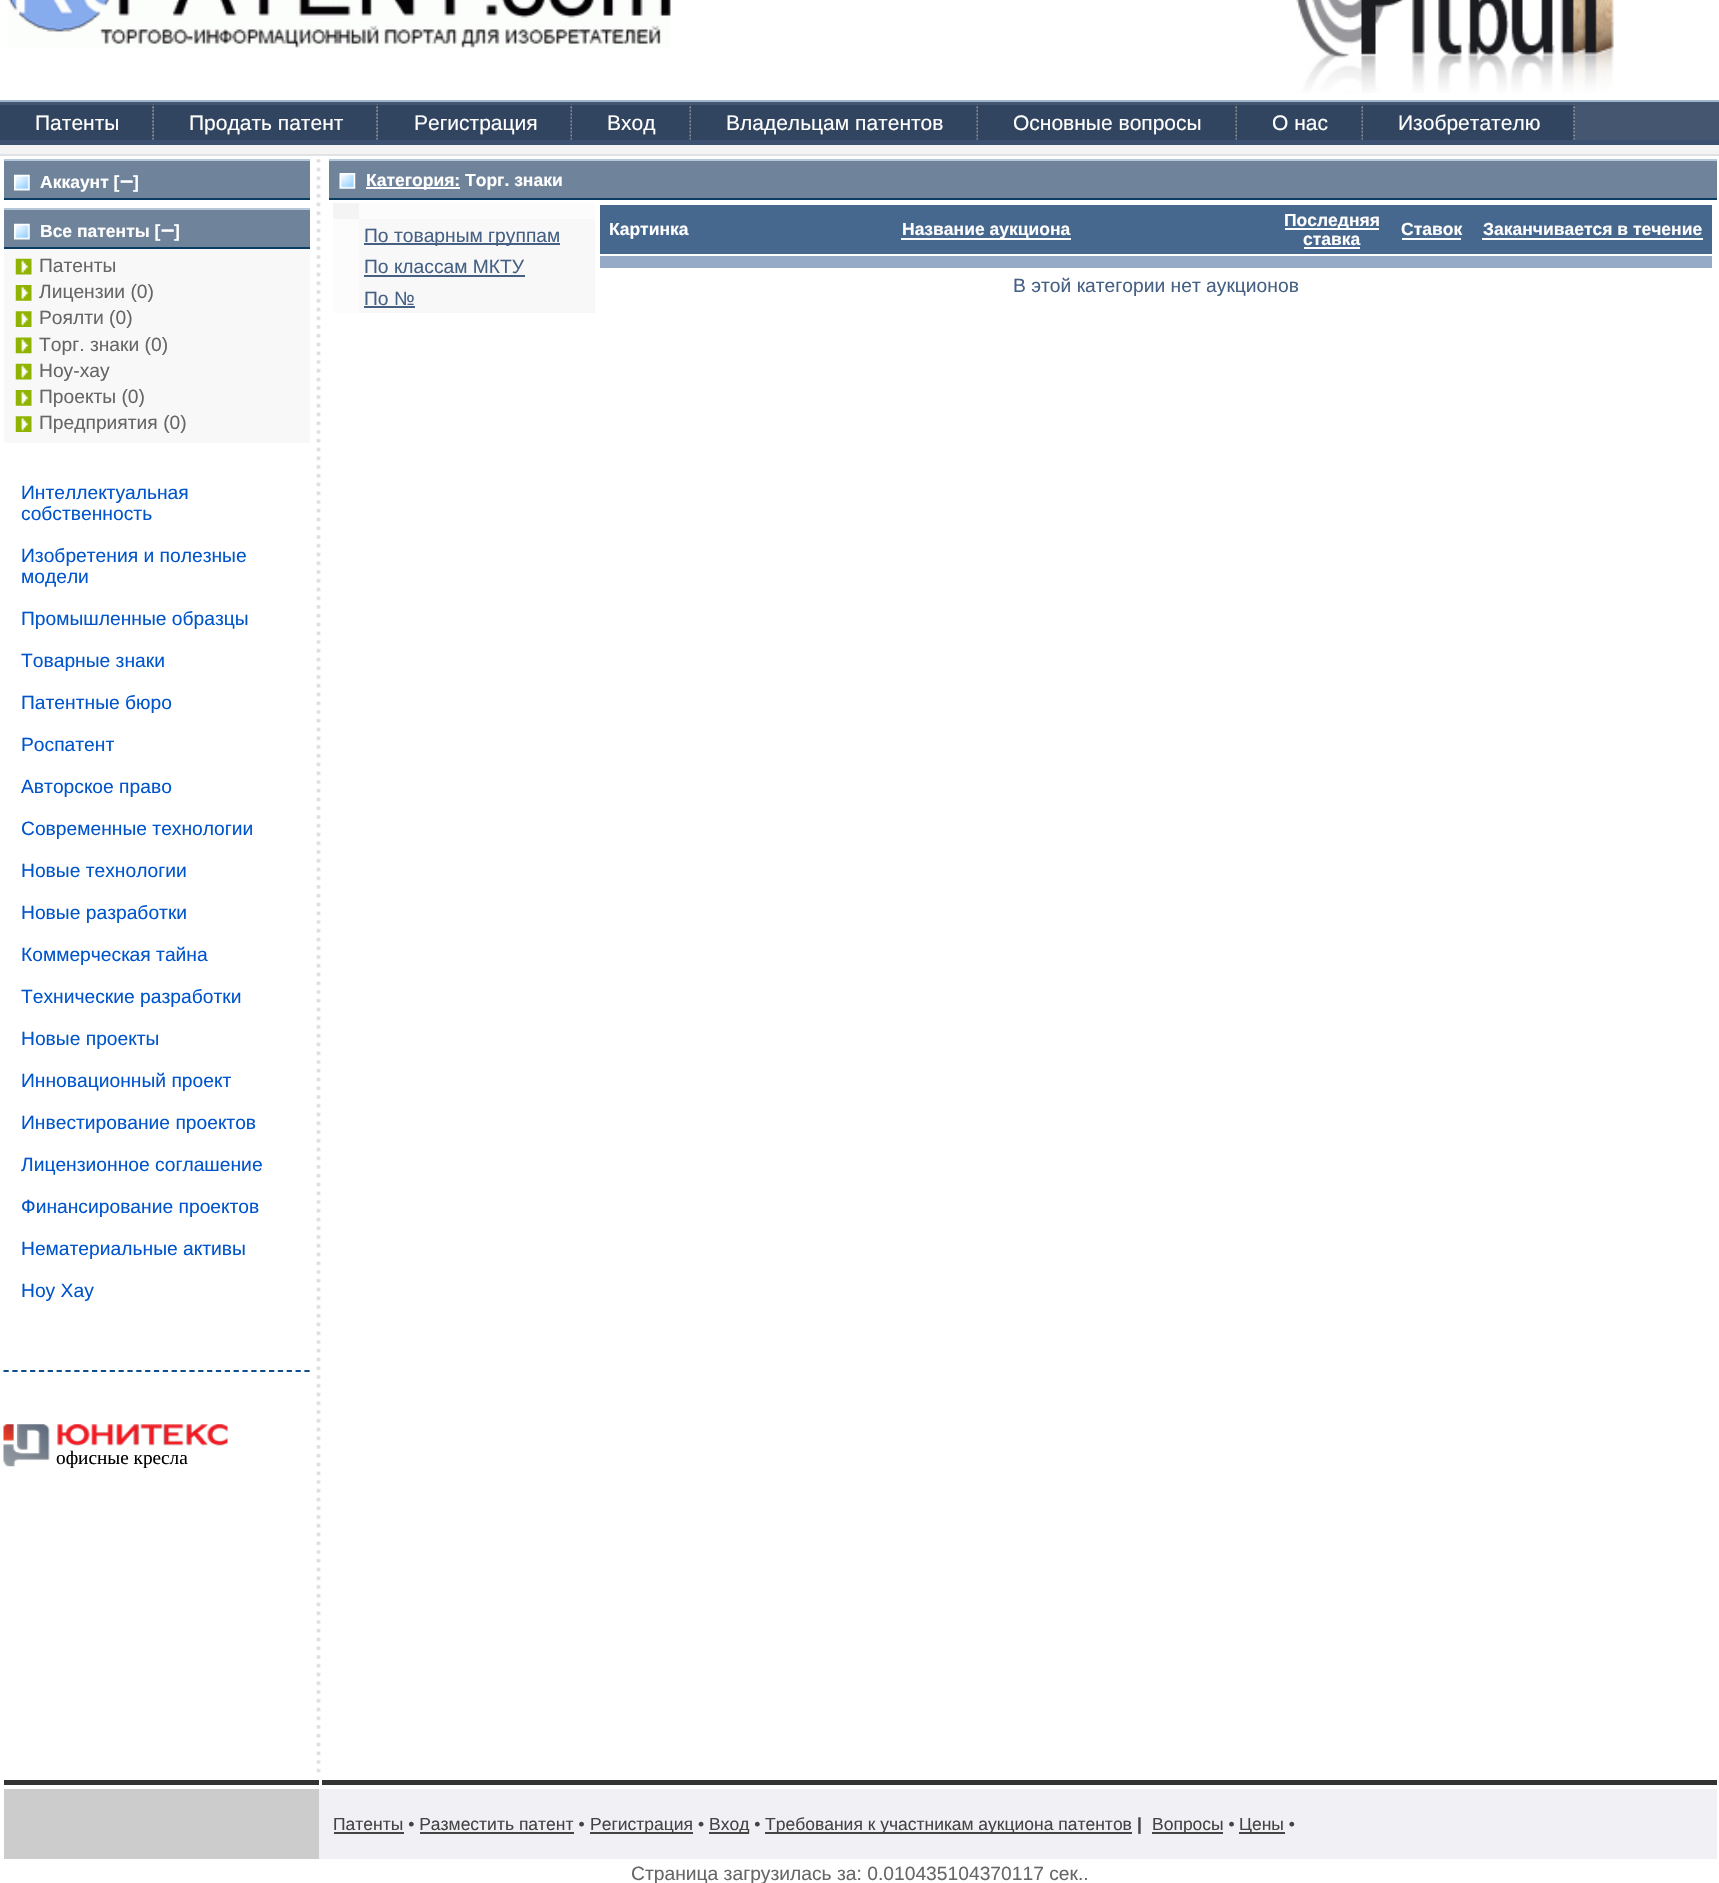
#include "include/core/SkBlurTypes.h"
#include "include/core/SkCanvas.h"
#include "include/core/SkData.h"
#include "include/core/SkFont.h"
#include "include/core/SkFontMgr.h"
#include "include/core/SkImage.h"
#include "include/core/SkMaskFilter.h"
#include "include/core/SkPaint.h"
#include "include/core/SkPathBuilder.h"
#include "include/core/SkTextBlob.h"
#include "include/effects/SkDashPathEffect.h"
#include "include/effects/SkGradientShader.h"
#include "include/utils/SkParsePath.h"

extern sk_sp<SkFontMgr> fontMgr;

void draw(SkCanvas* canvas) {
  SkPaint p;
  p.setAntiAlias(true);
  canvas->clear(SK_ColorWHITE);
  canvas->drawImageRect(SkImages::DeferredFromEncodedData(SkData::MakeFromFileName("images/1.png")), SkRect::MakeLTRB(8, 0, 671, 48), SkSamplingOptions());
  canvas->drawImageRect(SkImages::DeferredFromEncodedData(SkData::MakeFromFileName("images/2.png")), SkRect::MakeLTRB(1296, 0, 1614, 93), SkSamplingOptions());
  p.setColor(SkColorSetRGB(244, 244, 244));
  canvas->drawRect(SkRect::MakeLTRB(0, 145, 1719, 154), p);
  p.setColor(SkColorSetRGB(159, 182, 205));
  canvas->drawRect(SkRect::MakeLTRB(0, 100, 1719, 102), p);
  p.setColor(SkColorSetRGB(225, 226, 228));
  canvas->drawRect(SkRect::MakeLTRB(0, 154, 1719, 156), p);
  p.setColor(SkColorSetRGB(69, 86, 112));
  canvas->drawRect(SkRect::MakeLTRB(0, 102, 1719, 140), p);
  p.setColor(SkColorSetRGB(61, 81, 114));
  canvas->drawRect(SkRect::MakeLTRB(0, 140, 1719, 145), p);
  p.setColor(SkColorSetRGB(49, 69, 96));
  canvas->drawRect(SkRect::MakeLTRB(0, 105, 572, 140), p);
  canvas->drawImageRect(SkImages::DeferredFromEncodedData(SkData::MakeFromFileName("images/3.png")), SkRect::MakeLTRB(152, 104, 154, 140), SkSamplingOptions());
  canvas->drawImageRect(SkImages::DeferredFromEncodedData(SkData::MakeFromFileName("images/3.png")), SkRect::MakeLTRB(376, 104, 378, 140), SkSamplingOptions());
  canvas->drawImageRect(SkImages::DeferredFromEncodedData(SkData::MakeFromFileName("images/4.png")), SkRect::MakeLTRB(570, 104, 573, 140), SkSamplingOptions());
  canvas->drawRect(SkRect::MakeLTRB(572, 105, 691, 140), p);
  canvas->drawImageRect(SkImages::DeferredFromEncodedData(SkData::MakeFromFileName("images/4.png")), SkRect::MakeLTRB(689, 104, 692, 140), SkSamplingOptions());
  canvas->drawRect(SkRect::MakeLTRB(691, 105, 978, 140), p);
  canvas->drawImageRect(SkImages::DeferredFromEncodedData(SkData::MakeFromFileName("images/4.png")), SkRect::MakeLTRB(976, 104, 979, 140), SkSamplingOptions());
  canvas->drawRect(SkRect::MakeLTRB(978, 105, 1237, 140), p);
  canvas->drawImageRect(SkImages::DeferredFromEncodedData(SkData::MakeFromFileName("images/4.png")), SkRect::MakeLTRB(1235, 104, 1238, 140), SkSamplingOptions());
  canvas->drawRect(SkRect::MakeLTRB(1237, 105, 1363, 140), p);
  canvas->drawImageRect(SkImages::DeferredFromEncodedData(SkData::MakeFromFileName("images/4.png")), SkRect::MakeLTRB(1361, 104, 1364, 140), SkSamplingOptions());
  canvas->drawRect(SkRect::MakeLTRB(1363, 105, 1575, 140), p);
  canvas->drawImageRect(SkImages::DeferredFromEncodedData(SkData::MakeFromFileName("images/3.png")), SkRect::MakeLTRB(1573, 104, 1575, 140), SkSamplingOptions());
  p.setColor(SkColorSetRGB(182, 199, 217));
  canvas->drawRect(SkRect::MakeLTRB(4, 159, 310, 161), p);
  p.setColor(SkColorSetRGB(111, 132, 155));
  canvas->drawRect(SkRect::MakeLTRB(4, 161, 310, 198), p);
  canvas->drawImageRect(SkImages::DeferredFromEncodedData(SkData::MakeFromFileName("images/5.png")), SkRect::MakeLTRB(14, 174, 30, 191), SkSamplingOptions());
  p.setColor(SkColorSetRGB(11, 60, 97));
  canvas->drawRect(SkRect::MakeLTRB(4, 198, 310, 200), p);
  p.setColor(SkColorSetRGB(182, 199, 217));
  canvas->drawRect(SkRect::MakeLTRB(4, 208, 310, 210), p);
  p.setColor(SkColorSetRGB(111, 132, 155));
  canvas->drawRect(SkRect::MakeLTRB(4, 210, 310, 247), p);
  canvas->drawImageRect(SkImages::DeferredFromEncodedData(SkData::MakeFromFileName("images/5.png")), SkRect::MakeLTRB(14, 223, 30, 240), SkSamplingOptions());
  p.setColor(SkColorSetRGB(11, 60, 97));
  canvas->drawRect(SkRect::MakeLTRB(4, 247, 310, 249), p);
  p.setColor(SkColorSetRGB(248, 248, 248));
  canvas->drawRect(SkRect::MakeLTRB(4, 249, 310, 443), p);
  canvas->drawImageRect(SkImages::DeferredFromEncodedData(SkData::MakeFromFileName("images/6.png")), SkRect::MakeLTRB(15, 258, 32, 275), SkSamplingOptions());
  canvas->drawImageRect(SkImages::DeferredFromEncodedData(SkData::MakeFromFileName("images/7.png")), SkRect::MakeLTRB(15, 285, 32, 301), SkSamplingOptions());
  canvas->drawImageRect(SkImages::DeferredFromEncodedData(SkData::MakeFromFileName("images/8.png")), SkRect::MakeLTRB(15, 311, 32, 327), SkSamplingOptions());
  canvas->drawImageRect(SkImages::DeferredFromEncodedData(SkData::MakeFromFileName("images/9.png")), SkRect::MakeLTRB(15, 337, 32, 354), SkSamplingOptions());
  canvas->drawImageRect(SkImages::DeferredFromEncodedData(SkData::MakeFromFileName("images/6.png")), SkRect::MakeLTRB(15, 363, 32, 380), SkSamplingOptions());
  canvas->drawImageRect(SkImages::DeferredFromEncodedData(SkData::MakeFromFileName("images/7.png")), SkRect::MakeLTRB(15, 390, 32, 406), SkSamplingOptions());
  canvas->drawImageRect(SkImages::DeferredFromEncodedData(SkData::MakeFromFileName("images/8.png")), SkRect::MakeLTRB(15, 416, 32, 432), SkSamplingOptions());
  p.setStyle(SkPaint::kStroke_Style);
  p.setStrokeWidth(1.8f);
  p.setColor(SkColorSetRGB(16, 78, 139));
  p.setPathEffect(SkDashPathEffect::Make({{5.25f, 3.6f}}, 0));
  canvas->drawPath(SkPathBuilder().moveTo(3.5f, 1371).lineTo(310, 1371).detach(), p);
  p.setPathEffect(nullptr);
  canvas->drawImageRect(SkImages::DeferredFromEncodedData(SkData::MakeFromFileName("images/10.png")), SkRect::MakeLTRB(3, 1424, 228, 1467), SkSamplingOptions());
  canvas->drawImageRect(SkImages::DeferredFromEncodedData(SkData::MakeFromFileName("images/11.png")), SkRect::MakeLTRB(316, 159, 321, 1773), SkSamplingOptions());
  p.setStyle(SkPaint::kFill_Style);
  p.setColor(SkColorSetRGB(182, 199, 217));
  canvas->drawRect(SkRect::MakeLTRB(329, 159, 1717, 161), p);
  p.setColor(SkColorSetRGB(111, 132, 155));
  canvas->drawRect(SkRect::MakeLTRB(329, 161, 1717, 198), p);
  canvas->drawImageRect(SkImages::DeferredFromEncodedData(SkData::MakeFromFileName("images/12.png")), SkRect::MakeLTRB(339, 173, 356, 189), SkSamplingOptions());
  p.setColor(SK_ColorWHITE);
  canvas->drawRect(SkRect::MakeLTRB(366, 187, 460, 189), p);
  p.setColor(SkColorSetRGB(11, 60, 97));
  canvas->drawRect(SkRect::MakeLTRB(329, 198, 1717, 200), p);
  p.setColor(SkColorSetRGB(244, 244, 244));
  canvas->drawRect(SkRect::MakeLTRB(333, 203, 359, 219), p);
  p.setColor(SkColorSetRGB(252, 252, 252));
  canvas->drawRect(SkRect::MakeLTRB(359, 203, 595, 219), p);
  canvas->drawRect(SkRect::MakeLTRB(333, 219, 359, 313), p);
  p.setColor(SkColorSetRGB(248, 248, 248));
  canvas->drawRect(SkRect::MakeLTRB(359, 219, 595, 313), p);
  p.setColor(SkColorSetRGB(69, 96, 131));
  canvas->drawRect(SkRect::MakeLTRB(364, 243, 560, 245), p);
  canvas->drawRect(SkRect::MakeLTRB(364, 275, 525, 277), p);
  canvas->drawRect(SkRect::MakeLTRB(364, 306, 415, 308), p);
  p.setColor(SkColorSetRGB(70, 103, 142));
  canvas->drawRect(SkRect::MakeLTRB(600, 205, 1712, 254), p);
  p.setColor(SK_ColorWHITE);
  canvas->drawRect(SkRect::MakeLTRB(901, 238, 1071, 240), p);
  canvas->drawRect(SkRect::MakeLTRB(1285, 228, 1379, 230), p);
  canvas->drawRect(SkRect::MakeLTRB(1304, 247, 1360, 249), p);
  canvas->drawRect(SkRect::MakeLTRB(1402, 238, 1461, 240), p);
  canvas->drawRect(SkRect::MakeLTRB(1482, 238, 1703, 240), p);
  p.setColor(SkColorSetRGB(148, 170, 198));
  canvas->drawRect(SkRect::MakeLTRB(600, 256, 1712, 268), p);
  p.setColor(SkColorSetRGB(51, 51, 51));
  canvas->drawRect(SkRect::MakeLTRB(4, 1780, 319, 1785), p);
  canvas->drawRect(SkRect::MakeLTRB(322, 1780, 1717, 1785), p);
  p.setColor(SkColorSetRGB(241, 241, 245));
  canvas->drawRect(SkRect::MakeLTRB(319, 1789, 1717, 1859), p);
  p.setColor(SkColorSetRGB(204, 204, 204));
  canvas->drawRect(SkRect::MakeLTRB(4, 1789, 319, 1859), p);
  p.setColor(SkColorSetRGB(68, 68, 68));
  canvas->drawRect(SkRect::MakeLTRB(334, 1832, 404, 1834), p);
  canvas->drawRect(SkRect::MakeLTRB(590, 1832, 693, 1834), p);
  canvas->drawRect(SkRect::MakeLTRB(709, 1832, 749, 1834), p);
  canvas->drawRect(SkRect::MakeLTRB(765, 1832, 1132, 1834), p);
  canvas->drawRect(SkRect::MakeLTRB(1152, 1832, 1223, 1834), p);
  canvas->drawRect(SkRect::MakeLTRB(1239, 1832, 1285, 1834), p);
  canvas->drawRect(SkRect::MakeLTRB(420, 1832, 574, 1834), p);
  SkFont font1(fontMgr->matchFamilyStyle("Liberation Sans", SkFontStyle::Normal()), 21);
  font1.setSubpixel(true);
  p.setColor(SK_ColorWHITE);
  canvas->drawString("Патенты", 35, 130, font1, p);
  canvas->drawString("Продать патент", 189, 130, font1, p);
  canvas->drawString("Регистрация", 414, 130, font1, p);
  canvas->drawString("Вход", 607, 130, font1, p);
  canvas->drawString("Владельцам патентов", 726, 130, font1, p);
  canvas->drawString("Основные вопросы", 1013, 130, font1, p);
  canvas->drawString("О нас", 1272, 130, font1, p);
  canvas->drawString("Изобретателю", 1398, 130, font1, p);
  SkFont font2(fontMgr->matchFamilyStyle("Liberation Sans", SkFontStyle::Bold()), 17.5f);
  font2.setSubpixel(true);
  canvas->drawString("Аккаунт [", 40, 188, font2, p);
  SkFont font3(fontMgr->matchFamilyStyle("Liberation Sans", SkFontStyle::Bold()), 24);
  font3.setSubpixel(true);
  canvas->drawString("–", 120, 188, font3, p);
  canvas->drawString("]", 133, 188, font2, p);
  canvas->drawString("Все патенты [", 40, 237, font2, p);
  canvas->drawString("–", 161, 237, font3, p);
  canvas->drawString("]", 174, 237, font2, p);
  SkFont font4(fontMgr->matchFamilyStyle("Liberation Sans", SkFontStyle::Normal()), 19.25f);
  font4.setSubpixel(true);
  p.setColor(SkColorSetRGB(102, 102, 102));
  canvas->drawString("Патенты", 39, 272, font4, p);
  canvas->drawString("Лицензии (0)", 39, 298, font4, p);
  canvas->drawString("Роялти (0)", 39, 324, font4, p);
  canvas->drawString("Торг. знаки (0)", 39, 351, font4, p);
  canvas->drawString("Ноу-хау", 39, 377, font4, p);
  canvas->drawString("Проекты (0)", 39, 403, font4, p);
  canvas->drawString("Предприятия (0)", 39, 429, font4, p);
  p.setColor(SkColorSetRGB(0, 85, 204));
  canvas->drawString("Интеллектуальная", 21, 499, font4, p);
  canvas->drawString("собственность", 21, 520, font4, p);
  canvas->drawString("Изобретения и полезные", 21, 562, font4, p);
  canvas->drawString("модели", 21, 583, font4, p);
  canvas->drawString("Промышленные образцы", 21, 625, font4, p);
  canvas->drawString("Товарные знаки", 21, 667, font4, p);
  canvas->drawString("Патентные бюро", 21, 709, font4, p);
  canvas->drawString("Роспатент", 21, 751, font4, p);
  canvas->drawString("Авторское право", 21, 793, font4, p);
  canvas->drawString("Современные технологии", 21, 835, font4, p);
  canvas->drawString("Новые технологии", 21, 877, font4, p);
  canvas->drawString("Новые разработки", 21, 919, font4, p);
  canvas->drawString("Коммерческая тайна", 21, 961, font4, p);
  canvas->drawString("Технические разработки", 21, 1003, font4, p);
  canvas->drawString("Новые проекты", 21, 1045, font4, p);
  canvas->drawString("Инновационный проект", 21, 1087, font4, p);
  canvas->drawString("Инвестирование проектов", 21, 1129, font4, p);
  canvas->drawString("Лицензионное соглашение", 21, 1171, font4, p);
  canvas->drawString("Финансирование проектов", 21, 1213, font4, p);
  canvas->drawString("Нематериальные активы", 21, 1255, font4, p);
  canvas->drawString("Ноу Хау", 21, 1297, font4, p);
  SkFont font5(fontMgr->matchFamilyStyle("Liberation Serif", SkFontStyle::Normal()), 19.25f);
  font5.setSubpixel(true);
  p.setColor(SK_ColorBLACK);
  canvas->drawString("офисные кресла", 56, 1464, font5, p);
  p.setColor(SK_ColorWHITE);
  canvas->drawString("Категория: Торг. знаки", 366, 186, font2, p);
  p.setColor(SkColorSetRGB(69, 96, 131));
  canvas->drawString("По товарным группам", 364, 242, font4, p);
  canvas->drawString("По классам МКТУ", 364, 273, font4, p);
  canvas->drawString("По №", 364, 305, font4, p);
  p.setColor(SK_ColorWHITE);
  canvas->drawString("Картинка", 609, 235, font2, p);
  canvas->drawString("Название аукциона", 902, 235, font2, p);
  canvas->drawString("Последняя", 1284, 226, font2, p);
  canvas->drawString("ставка", 1303, 245, font2, p);
  canvas->drawString("Ставок", 1401, 235, font2, p);
  canvas->drawString("Заканчивается в течение", 1483, 235, font2, p);
  p.setColor(SkColorSetRGB(69, 96, 131));
  canvas->drawString("В этой категории нет аукционов", 1013, 292, font4, p);
  SkFont font6(fontMgr->matchFamilyStyle("Liberation Sans", SkFontStyle::Normal()), 17.5f);
  font6.setSubpixel(true);
  p.setColor(SkColorSetRGB(68, 68, 68));
  canvas->drawString("Патенты • Разместить патент •", 333, 1830, font6, p);
  canvas->drawString("Регистрация •", 590, 1830, font6, p);
  canvas->drawString("Вход •", 709, 1830, font6, p);
  canvas->drawString("Требования к участникам аукциона патентов", 765, 1830, font6, p);
  canvas->drawString("|", 1137, 1830, font2, p);
  canvas->drawString("Вопросы •", 1152, 1830, font6, p);
  canvas->drawString("Цены •", 1239, 1830, font6, p);
  p.setColor(SkColorSetRGB(102, 102, 102));
  canvas->drawString("Страница загрузилась за: 0.010435104370117 сек..", 631, 1880, font4, p);
}
